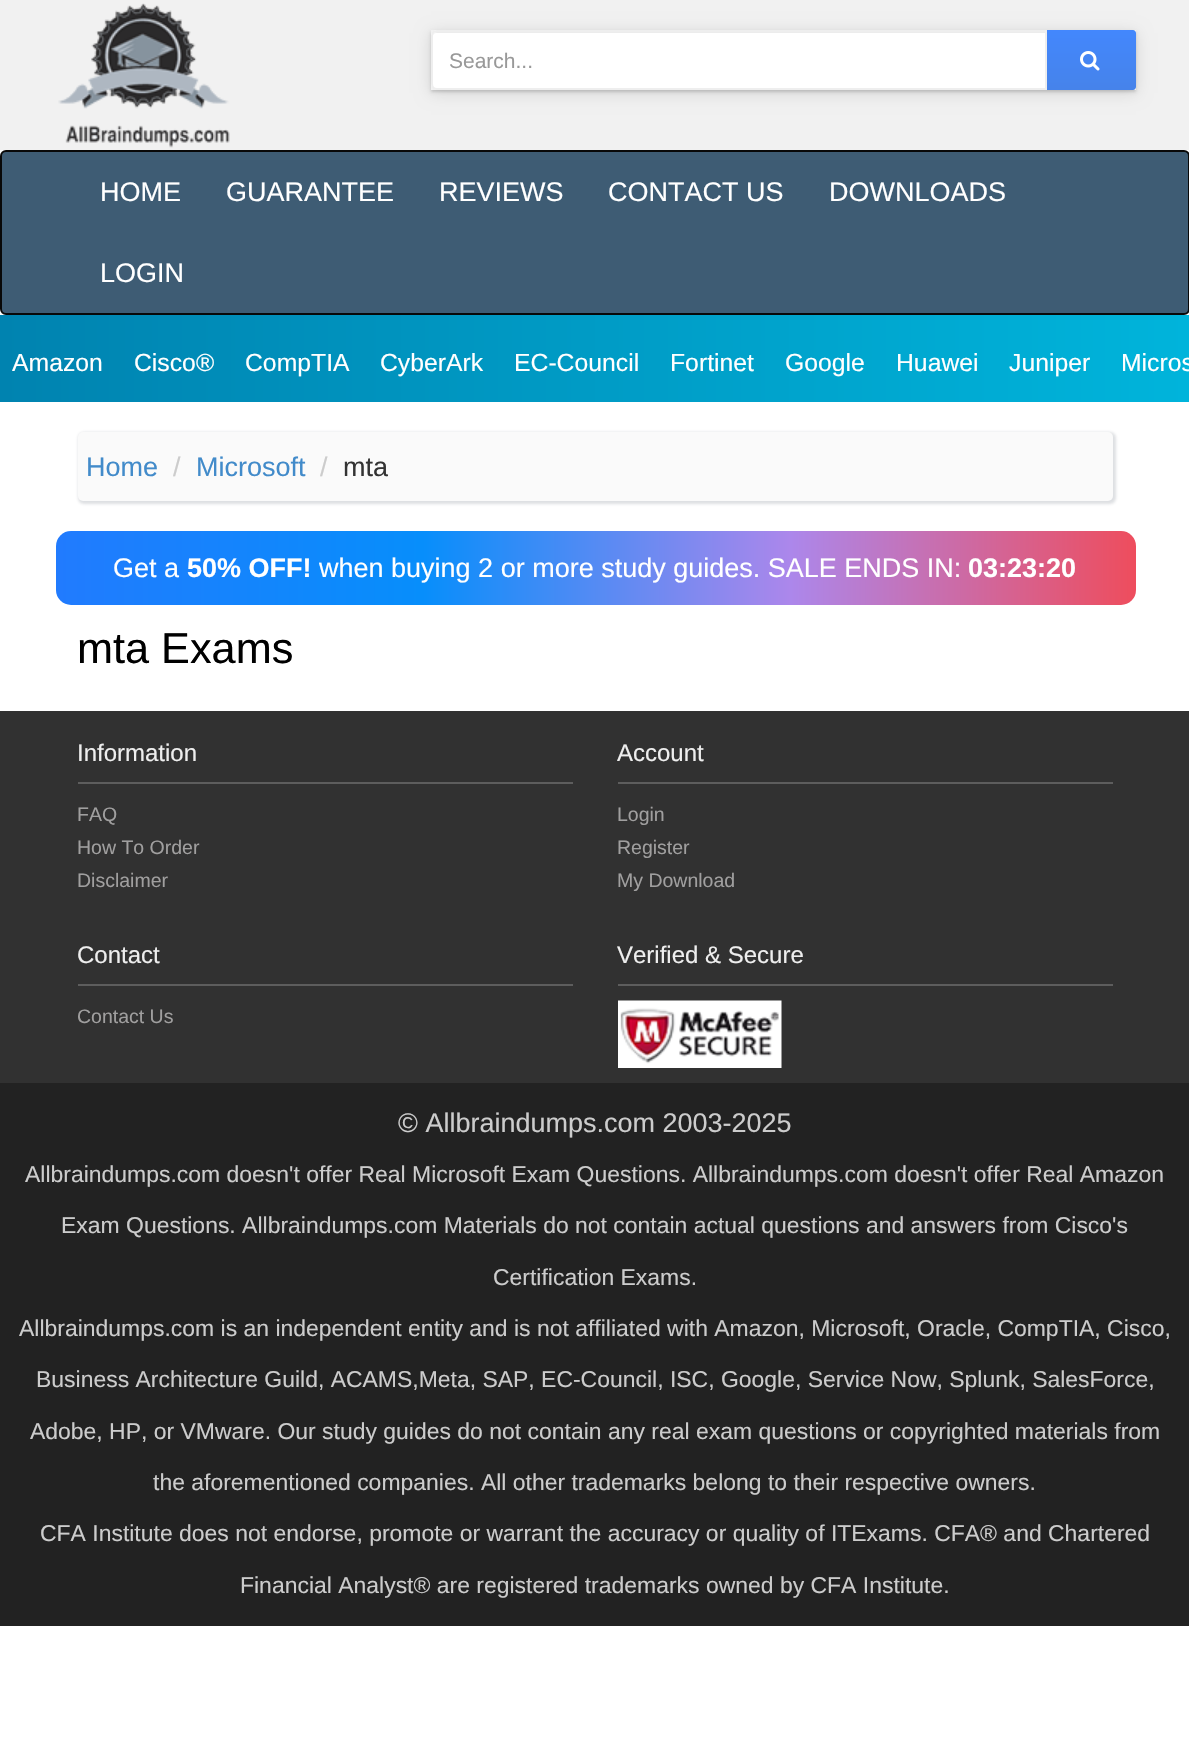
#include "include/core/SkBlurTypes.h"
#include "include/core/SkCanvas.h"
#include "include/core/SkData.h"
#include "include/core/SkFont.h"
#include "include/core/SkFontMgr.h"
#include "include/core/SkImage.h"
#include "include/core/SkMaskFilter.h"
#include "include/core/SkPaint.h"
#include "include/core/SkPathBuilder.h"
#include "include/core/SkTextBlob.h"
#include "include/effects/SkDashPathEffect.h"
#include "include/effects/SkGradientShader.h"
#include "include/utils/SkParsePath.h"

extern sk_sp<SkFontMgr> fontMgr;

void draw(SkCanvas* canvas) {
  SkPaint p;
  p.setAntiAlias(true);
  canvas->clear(SK_ColorWHITE);
  p.setColor(SkColorSetRGB(241, 241, 241));
  canvas->drawRect(SkRect::MakeLTRB(0, 0, 1189, 150), p);
  canvas->drawImageRect(SkImages::DeferredFromEncodedData(SkData::MakeFromFileName("images/1.png")), SkRect::MakeLTRB(58, 3, 230, 148), SkSamplingOptions());
  canvas->save();
  canvas->clipPath(SkPathBuilder(SkPathFillType::kEvenOdd).moveTo(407, 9).lineTo(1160, 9).lineTo(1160, 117).lineTo(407, 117).close().moveTo(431, 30).lineTo(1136, 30).lineTo(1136, 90).lineTo(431, 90).close().detach(), true);
  p.setColor(SkColorSetARGB(31, 0, 0, 0));
  p.setMaskFilter(SkMaskFilter::MakeBlur(kNormal_SkBlurStyle, 7.5f));
  canvas->drawRect(SkRect::MakeLTRB(431, 33, 1136, 93), p);
  p.setMaskFilter(nullptr);
  canvas->restore();
  canvas->save();
  canvas->clipPath(SkPathBuilder(SkPathFillType::kEvenOdd).moveTo(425, 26).lineTo(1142, 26).lineTo(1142, 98).lineTo(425, 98).close().moveTo(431, 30).lineTo(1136, 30).lineTo(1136, 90).lineTo(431, 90).close().detach(), true);
  p.setColor(SkColorSetARGB(41, 0, 0, 0));
  p.setMaskFilter(SkMaskFilter::MakeBlur(kNormal_SkBlurStyle, 1.5f));
  canvas->drawRect(SkRect::MakeLTRB(431, 32, 1136, 92), p);
  p.setMaskFilter(nullptr);
  canvas->restore();
  {
    const SkColor colors[] = {SkColorSetRGB(67, 135, 253), SkColorSetRGB(70, 131, 234)};
    const float stops[] = {0, 1};
    const SkPoint ends[] = {{1091, 30}, {1091, 90}};
    p.setShader(SkGradientShader::MakeLinear(ends, colors, stops, 2, SkTileMode::kClamp));
    p.setAlpha(255);
  }
  canvas->drawPath(SkPathBuilder().moveTo(1046, 30).lineTo(1133, 30).cubicTo(1134.5f, 30, 1136, 31.5f, 1136, 33).lineTo(1136, 87).cubicTo(1136, 88.5f, 1134.5f, 90, 1133, 90).lineTo(1046, 90).close().detach(), p);
  p.setShader(nullptr);
  p.setColor(SK_ColorWHITE);
  canvas->drawPath(SkPathBuilder().moveTo(437, 30).lineTo(1047, 30).lineTo(1047, 90).lineTo(437, 90).cubicTo(433.5f, 90, 431, 87.5f, 431, 84).lineTo(431, 36).cubicTo(431, 32.5f, 433.5f, 30, 437, 30).close().detach(), p);
  p.setColor(SkColorSetRGB(236, 236, 236));
  canvas->drawPath(SkPathBuilder().moveTo(436, 33).lineTo(1046, 33).lineTo(1046, 32).lineTo(437, 32).cubicTo(434, 32, 432, 35, 432, 38).cubicTo(432, 35, 434, 33, 436, 33).close().detach(), p);
  p.setStyle(SkPaint::kStroke_Style);
  p.setStrokeWidth(2);
  p.setColor(SkColorSetRGB(238, 238, 238));
  canvas->drawPath(SkPathBuilder().moveTo(437, 31).lineTo(1046, 31).lineTo(1046, 89).lineTo(437, 89).cubicTo(434, 89, 432, 87, 432, 84).lineTo(432, 36).cubicTo(432, 33, 434, 31, 437, 31).close().detach(), p);
  canvas->drawImageRect(SkImages::DeferredFromEncodedData(SkData::MakeFromFileName("images/2.png")), SkRect::MakeLTRB(1080, 51, 1100, 71), SkSamplingOptions());
  p.setStyle(SkPaint::kFill_Style);
  p.setColor(SkColorSetRGB(62, 92, 116));
  canvas->drawRoundRect(SkRect::MakeLTRB(1, 151, 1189, 314), 5, 5, p);
  p.setStyle(SkPaint::kStroke_Style);
  p.setColor(SkColorSetRGB(8, 8, 8));
  canvas->drawRoundRect(SkRect::MakeLTRB(1, 151, 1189, 314), 5, 5, p);
  p.setStyle(SkPaint::kFill_Style);
  {
    const SkColor colors[] = {SkColorSetRGB(0, 131, 176), SkColorSetRGB(0, 180, 219)};
    const float stops[] = {0, 1};
    const SkPoint ends[] = {{0, 359}, {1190, 358}};
    p.setShader(SkGradientShader::MakeLinear(ends, colors, stops, 2, SkTileMode::kClamp));
    p.setAlpha(255);
  }
  canvas->drawRect(SkRect::MakeLTRB(0, 315, 1189, 402), p);
  p.setShader(nullptr);
  p.setColor(SkColorSetARGB(38, 27, 43, 58));
  p.setMaskFilter(SkMaskFilter::MakeBlur(kNormal_SkBlurStyle, 1.5f));
  canvas->drawRoundRect(SkRect::MakeLTRB(78, 432, 1116, 504), 6, 6, p);
  p.setMaskFilter(nullptr);
  p.setColor(SkColorSetRGB(250, 250, 250));
  canvas->drawRoundRect(SkRect::MakeLTRB(78, 432, 1113, 501), 5, 5, p);
  {
    const SkColor colors[] = {SkColorSetRGB(33, 123, 254), SkColorSetRGB(7, 142, 251), SkColorSetRGB(172, 135, 235), SkColorSetRGB(238, 77, 93)};
    const float stops[] = {0, 0.34f, 0.68f, 1};
    const SkPoint ends[] = {{56, 568}, {1136, 568}};
    p.setShader(SkGradientShader::MakeLinear(ends, colors, stops, 4, SkTileMode::kClamp));
    p.setAlpha(255);
  }
  canvas->drawRoundRect(SkRect::MakeLTRB(56, 531, 1136, 605), 15, 15, p);
  p.setShader(nullptr);
  p.setColor(SkColorSetRGB(49, 49, 49));
  canvas->drawRect(SkRect::MakeLTRB(0, 711, 1189, 1083), p);
  p.setColor(SkColorSetRGB(93, 93, 93));
  canvas->drawRect(SkRect::MakeLTRB(78, 782, 573, 784), p);
  canvas->drawRect(SkRect::MakeLTRB(618, 782, 1113, 784), p);
  canvas->drawRect(SkRect::MakeLTRB(78, 984, 573, 986), p);
  canvas->drawRect(SkRect::MakeLTRB(618, 984, 1113, 986), p);
  canvas->drawImageRect(SkImages::DeferredFromEncodedData(SkData::MakeFromFileName("images/3.png")), SkRect::MakeLTRB(618, 1000, 782, 1068), SkSamplingOptions());
  p.setColor(SkColorSetRGB(34, 34, 34));
  canvas->drawRect(SkRect::MakeLTRB(0, 1083, 1189, 1626), p);
  SkFont font1(fontMgr->matchFamilyStyle("Liberation Sans", SkFontStyle::Normal()), 21);
  font1.setSubpixel(true);
  p.setColor(SkColorSetRGB(153, 153, 153));
  canvas->drawString("Search...", 449, 68, font1, p);
  SkFont font2(fontMgr->matchFamilyStyle("Liberation Sans", SkFontStyle::Normal()), 27);
  font2.setSubpixel(true);
  p.setColor(SK_ColorWHITE);
  canvas->drawString("HOME", 100, 201, font2, p);
  canvas->drawString("GUARANTEE", 226, 201, font2, p);
  canvas->drawString("REVIEWS", 439, 201, font2, p);
  canvas->drawString("CONTACT US", 608, 201, font2, p);
  canvas->drawString("DOWNLOADS", 829, 201, font2, p);
  canvas->drawString("LOGIN", 100, 282, font2, p);
  SkFont font3(fontMgr->matchFamilyStyle("Liberation Sans", SkFontStyle::Normal()), 24.75f);
  font3.setSubpixel(true);
  canvas->drawString("Amazon", 12, 371, font3, p);
  canvas->drawString("Cisco®", 134, 371, font3, p);
  canvas->drawString("CompTIA", 245, 371, font3, p);
  canvas->drawString("CyberArk", 380, 371, font3, p);
  canvas->drawString("EC-Council", 514, 371, font3, p);
  canvas->drawString("Fortinet", 670, 371, font3, p);
  canvas->drawString("Google", 785, 371, font3, p);
  canvas->drawString("Huawei", 896, 371, font3, p);
  canvas->drawString("Juniper", 1009, 371, font3, p);
  canvas->drawString("Micros", 1121, 371, font3, p);
  p.setColor(SkColorSetRGB(66, 139, 202));
  canvas->drawString("Home", 86, 476, font2, p);
  p.setColor(SkColorSetRGB(204, 204, 204));
  canvas->drawString("/", 173, 476, font2, p);
  p.setColor(SkColorSetRGB(66, 139, 202));
  canvas->drawString("Microsoft", 196, 476, font2, p);
  p.setColor(SkColorSetRGB(204, 204, 204));
  canvas->drawString("/", 320, 476, font2, p);
  p.setColor(SkColorSetRGB(51, 51, 51));
  canvas->drawString("mta", 343, 476, font2, p);
  p.setColor(SK_ColorWHITE);
  canvas->drawString("Get a", 113, 577, font2, p);
  SkFont font4(fontMgr->matchFamilyStyle("Liberation Sans", SkFontStyle::Bold()), 27);
  font4.setSubpixel(true);
  canvas->drawString("50% OFF!", 187, 577, font4, p);
  canvas->drawString("when buying 2 or more study guides. SALE ENDS IN:", 319, 577, font2, p);
  canvas->drawString("03:23:20", 968, 577, font4, p);
  SkFont font5(fontMgr->matchFamilyStyle("Liberation Sans", SkFontStyle::Normal()), 43.25f);
  font5.setSubpixel(true);
  p.setColor(SK_ColorBLACK);
  canvas->drawString("mta Exams", 77, 663, font5, p);
  SkFont font6(fontMgr->matchFamilyStyle("Liberation Sans", SkFontStyle::Normal()), 24);
  font6.setSubpixel(true);
  p.setColor(SkColorSetRGB(238, 238, 238));
  canvas->drawString("Information", 77, 761, font6, p);
  SkFont font7(fontMgr->matchFamilyStyle("Liberation Sans", SkFontStyle::Normal()), 19.5f);
  font7.setSubpixel(true);
  p.setColor(SkColorSetRGB(160, 159, 159));
  canvas->drawString("FAQ", 77, 821, font7, p);
  canvas->drawString("How To Order", 77, 854, font7, p);
  canvas->drawString("Disclaimer", 77, 887, font7, p);
  p.setColor(SkColorSetRGB(238, 238, 238));
  canvas->drawString("Account", 617, 761, font6, p);
  p.setColor(SkColorSetRGB(160, 159, 159));
  canvas->drawString("Login", 617, 821, font7, p);
  canvas->drawString("Register", 617, 854, font7, p);
  canvas->drawString("My Download", 617, 887, font7, p);
  p.setColor(SkColorSetRGB(238, 238, 238));
  canvas->drawString("Contact", 77, 963, font6, p);
  p.setColor(SkColorSetRGB(160, 159, 159));
  canvas->drawString("Contact Us", 77, 1023, font7, p);
  p.setColor(SkColorSetRGB(238, 238, 238));
  canvas->drawString("Verified & Secure", 617, 963, font6, p);
  p.setColor(SkColorSetRGB(204, 204, 204));
  canvas->drawString("© Allbraindumps.com 2003-2025", 398, 1132, font2, p);
  SkFont font8(fontMgr->matchFamilyStyle("Liberation Sans", SkFontStyle::Normal()), 22.95f);
  font8.setSubpixel(true);
  canvas->drawString("Allbraindumps.com doesn't offer Real Microsoft Exam Questions. Allbraindumps.com doesn't offer Real Amazon", 25, 1182, font8, p);
  canvas->drawString("Exam Questions. Allbraindumps.com Materials do not contain actual questions and answers from Cisco's", 61, 1233, font8, p);
  canvas->drawString("Certification Exams.", 493, 1285, font8, p);
  canvas->drawString("Allbraindumps.com is an independent entity and is not affiliated with Amazon, Microsoft, Oracle, CompTIA, Cisco,", 19, 1336, font8, p);
  canvas->drawString("Business Architecture Guild, ACAMS,Meta, SAP, EC-Council, ISC, Google, Service Now, Splunk, SalesForce,", 36, 1387, font8, p);
  canvas->drawString("Adobe, HP, or VMware. Our study guides do not contain any real exam questions or copyrighted materials from", 30, 1439, font8, p);
  canvas->drawString("the aforementioned companies. All other trademarks belong to their respective owners.", 153, 1490, font8, p);
  canvas->drawString("CFA Institute does not endorse, promote or warrant the accuracy or quality of ITExams. CFA® and Chartered", 40, 1541, font8, p);
  canvas->drawString("Financial Analyst® are registered trademarks owned by CFA Institute.", 240, 1593, font8, p);
}
